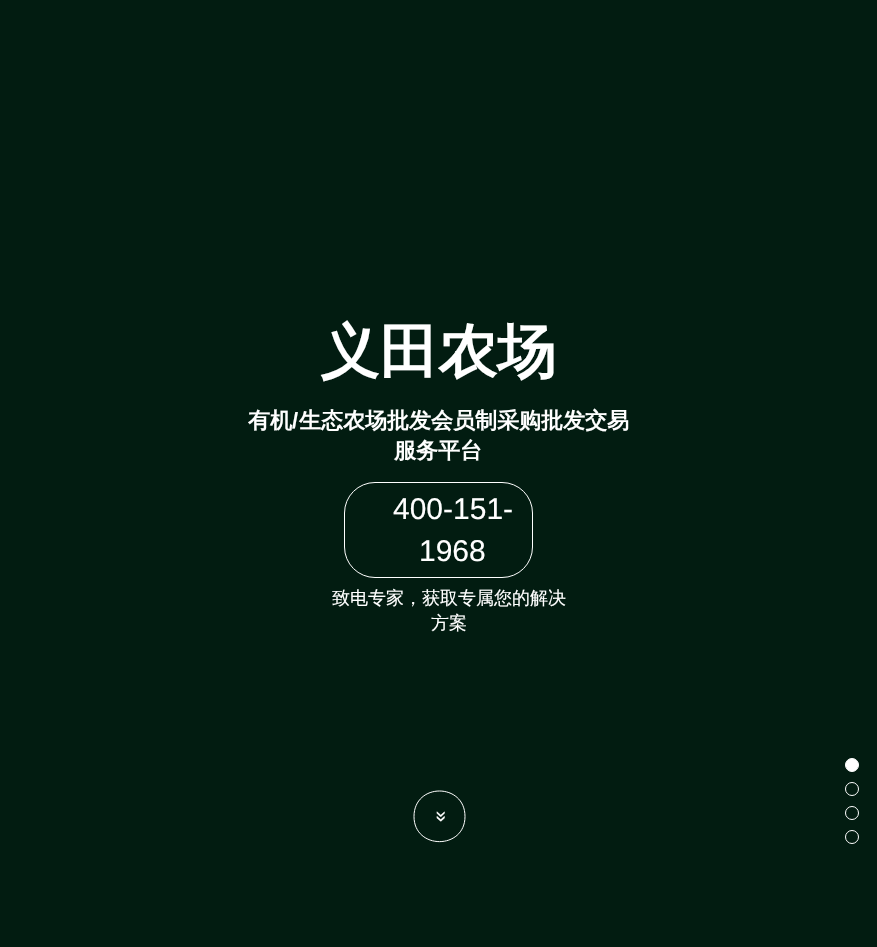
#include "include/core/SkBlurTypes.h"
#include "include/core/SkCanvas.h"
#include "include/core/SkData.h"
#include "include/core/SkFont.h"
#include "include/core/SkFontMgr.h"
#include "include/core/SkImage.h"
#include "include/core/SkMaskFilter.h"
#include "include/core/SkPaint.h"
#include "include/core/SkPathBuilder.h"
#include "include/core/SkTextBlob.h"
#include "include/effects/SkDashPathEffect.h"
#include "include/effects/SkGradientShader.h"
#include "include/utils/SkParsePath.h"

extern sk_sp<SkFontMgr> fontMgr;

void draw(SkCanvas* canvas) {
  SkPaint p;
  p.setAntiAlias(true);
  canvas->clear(SkColorSetRGB(2, 28, 17));
  p.setStyle(SkPaint::kStroke_Style);
  p.setStrokeWidth(1);
  p.setColor(SK_ColorWHITE);
  canvas->drawRoundRect(SkRect::MakeLTRB(344.5f, 482.5f, 532.5f, 577.5f), 30.5f, 30.5f, p);
  canvas->drawPath(SkPathBuilder().moveTo(414, 816.5f).cubicTo(414, 782.5f, 465, 782.5f, 465, 816.5f).cubicTo(465, 850, 414, 850, 414, 816.5f).close().detach(), p);
  p.setStyle(SkPaint::kFill_Style);
  canvas->drawCircle(852, 765, 6.5f, p);
  p.setStyle(SkPaint::kStroke_Style);
  canvas->drawCircle(852, 765, 6.5f, p);
  canvas->drawCircle(852, 789, 6.5f, p);
  canvas->drawCircle(852, 813, 6.5f, p);
  canvas->drawCircle(852, 837, 6.5f, p);
  SkFont font1(fontMgr->matchFamilyStyle("WenQuanYi Zen Hei", SkFontStyle::Bold()), 59);
  font1.setSubpixel(true);
  p.setStyle(SkPaint::kFill_Style);
  canvas->drawString("义田农场", 320, 372, font1, p);
  SkFont font2(fontMgr->matchFamilyStyle("WenQuanYi Zen Hei", SkFontStyle::Bold()), 22);
  font2.setSubpixel(true);
  canvas->drawString("有机", 248, 428, font2, p);
  SkFont font3(fontMgr->matchFamilyStyle("Liberation Sans", SkFontStyle::Bold()), 22);
  font3.setSubpixel(true);
  canvas->drawString("/", 292, 428, font3, p);
  canvas->drawString("生态农场批发会员制采购批发交易", 299, 428, font2, p);
  canvas->drawString("服务平台", 394, 458, font2, p);
  SkFont font4(fontMgr->matchFamilyStyle("Liberation Sans", SkFontStyle::Normal()), 30);
  font4.setSubpixel(true);
  canvas->drawString("400-151-", 393, 519, font4, p);
  canvas->drawString("1968", 419, 561, font4, p);
  SkFont font5(fontMgr->matchFamilyStyle("WenQuanYi Zen Hei", SkFontStyle(500, SkFontStyle::kNormal_Width, SkFontStyle::kUpright_Slant)), 18);
  font5.setSubpixel(true);
  canvas->drawString("致电专家，获取专属您的解决", 332, 604, font5, p);
  canvas->drawString("方案", 431, 629, font5, p);
  SkFont font6(fontMgr->matchFamilyStyle("Liberation Sans", SkFontStyle::Normal()), 20);
  font6.setSubpixel(true);
  canvas->save();
  canvas->rotate(-90, 446, 822);
  canvas->drawString("«", 446, 822, font6, p);
  canvas->restore();
}
